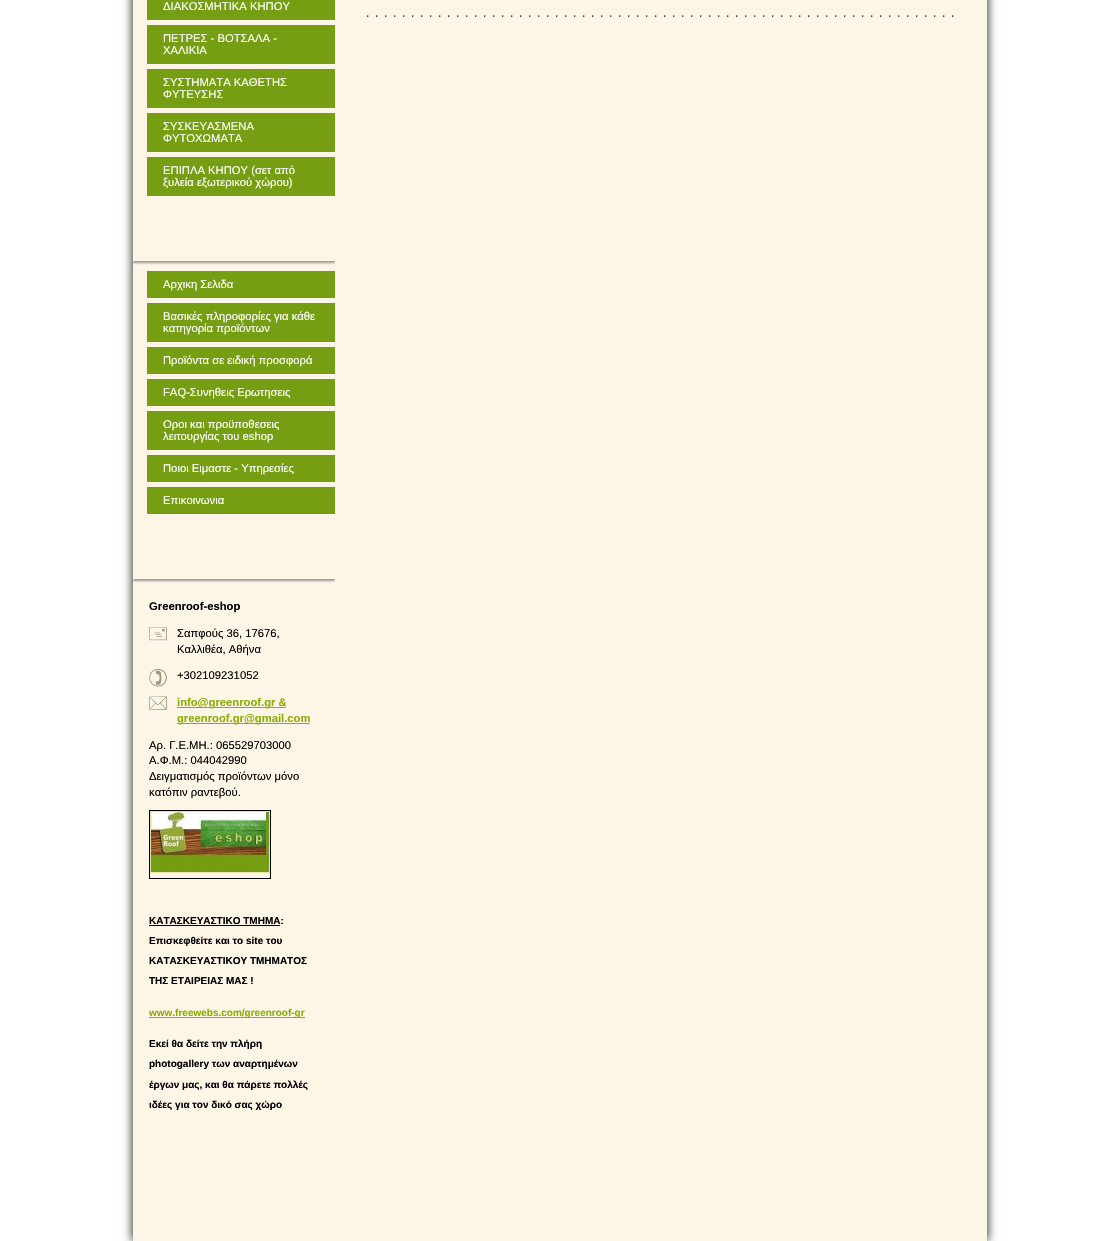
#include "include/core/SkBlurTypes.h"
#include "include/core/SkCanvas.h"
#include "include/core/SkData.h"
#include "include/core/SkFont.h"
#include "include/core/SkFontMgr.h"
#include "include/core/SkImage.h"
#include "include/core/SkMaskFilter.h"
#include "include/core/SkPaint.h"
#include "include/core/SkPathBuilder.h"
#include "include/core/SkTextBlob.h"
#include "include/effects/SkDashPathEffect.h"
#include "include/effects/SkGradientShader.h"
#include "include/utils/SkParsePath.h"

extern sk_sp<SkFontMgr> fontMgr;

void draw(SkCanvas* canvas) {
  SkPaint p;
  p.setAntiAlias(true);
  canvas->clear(SK_ColorWHITE);
  p.setColor(SkColorSetRGB(0, 24, 0));
  p.setMaskFilter(SkMaskFilter::MakeBlur(kNormal_SkBlurStyle, 5));
  canvas->drawRect(SkRect::MakeLTRB(133, -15, 987, 1241), p);
  p.setMaskFilter(nullptr);
  p.setColor(SkColorSetRGB(253, 245, 230));
  canvas->drawRect(SkRect::MakeLTRB(133, 0, 987, 1241), p);
  p.setColor(SkColorSetRGB(117, 158, 18));
  canvas->drawRect(SkRect::MakeLTRB(147, 0, 335, 20), p);
  canvas->drawRect(SkRect::MakeLTRB(147, 25, 335, 64), p);
  canvas->drawRect(SkRect::MakeLTRB(147, 69, 335, 108), p);
  canvas->drawRect(SkRect::MakeLTRB(147, 113, 335, 152), p);
  canvas->drawRect(SkRect::MakeLTRB(147, 157, 335, 196), p);
  canvas->save();
  canvas->clipRect(SkRect::MakeLTRB(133, 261, 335, 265));
  p.setColor(SkColorSetRGB(153, 153, 153));
  p.setMaskFilter(SkMaskFilter::MakeBlur(kNormal_SkBlurStyle, 1));
  canvas->drawRect(SkRect::MakeLTRB(133, 228, 335, 263), p);
  p.setMaskFilter(nullptr);
  canvas->restore();
  p.setColor(SkColorSetRGB(117, 158, 18));
  canvas->drawRect(SkRect::MakeLTRB(147, 271, 335, 298), p);
  canvas->drawRect(SkRect::MakeLTRB(147, 303, 335, 342), p);
  canvas->drawRect(SkRect::MakeLTRB(147, 347, 335, 374), p);
  canvas->drawRect(SkRect::MakeLTRB(147, 379, 335, 406), p);
  canvas->drawRect(SkRect::MakeLTRB(147, 411, 335, 450), p);
  canvas->drawRect(SkRect::MakeLTRB(147, 455, 335, 482), p);
  canvas->drawRect(SkRect::MakeLTRB(147, 487, 335, 514), p);
  canvas->save();
  canvas->clipRect(SkRect::MakeLTRB(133, 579, 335, 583));
  p.setColor(SkColorSetRGB(153, 153, 153));
  p.setMaskFilter(SkMaskFilter::MakeBlur(kNormal_SkBlurStyle, 1));
  canvas->drawRect(SkRect::MakeLTRB(133, 546, 335, 581), p);
  p.setMaskFilter(nullptr);
  canvas->restore();
  canvas->drawImageRect(SkImages::DeferredFromEncodedData(SkData::MakeFromFileName("images/1.png")), SkRect::MakeLTRB(149, 627, 167, 641), SkSamplingOptions());
  canvas->drawImageRect(SkImages::DeferredFromEncodedData(SkData::MakeFromFileName("images/2.png")), SkRect::MakeLTRB(149, 669, 167, 687), SkSamplingOptions());
  canvas->drawImageRect(SkImages::DeferredFromEncodedData(SkData::MakeFromFileName("images/3.png")), SkRect::MakeLTRB(149, 696, 167, 710), SkSamplingOptions());
  p.setColor(SkColorSetRGB(142, 173, 7));
  canvas->drawRect(SkRect::MakeLTRB(177, 707, 286, 708), p);
  canvas->drawRect(SkRect::MakeLTRB(177, 723, 310, 724), p);
  p.setStyle(SkPaint::kStroke_Style);
  p.setStrokeWidth(1);
  p.setColor(SK_ColorBLACK);
  canvas->drawRect(SkRect::MakeLTRB(149.5f, 810.5f, 270.5f, 878.5f), p);
  p.setColor(SkColorSetRGB(230, 226, 175));
  canvas->drawRect(SkRect::MakeLTRB(150.5f, 811.5f, 269.5f, 872.5f), p);
  canvas->drawImageRect(SkImages::DeferredFromEncodedData(SkData::MakeFromFileName("images/4.png")), SkRect::MakeLTRB(151, 812, 269, 872), SkSamplingOptions());
  p.setStyle(SkPaint::kFill_Style);
  p.setColor(SK_ColorBLACK);
  canvas->drawRect(SkRect::MakeLTRB(149, 925, 280, 926), p);
  p.setColor(SkColorSetRGB(142, 173, 7));
  canvas->drawRect(SkRect::MakeLTRB(149, 1017, 305, 1018), p);
  canvas->drawImageRect(SkImages::DeferredFromEncodedData(SkData::MakeFromFileName("images/5.png")), SkRect::MakeLTRB(367, 15, 954, 17), SkSamplingOptions());
  SkFont font1(fontMgr->matchFamilyStyle("Liberation Sans", SkFontStyle::Normal()), 11.25f);
  font1.setSubpixel(true);
  p.setColor(SK_ColorWHITE);
  canvas->drawString("ΔΙΑΚΟΣΜΗΤΙΚΑ ΚΗΠΟΥ", 163, 10, font1, p);
  canvas->drawString("ΠΕΤΡΕΣ - ΒΟΤΣΑΛΑ -", 163, 42, font1, p);
  canvas->drawString("ΧΑΛΙΚΙΑ", 163, 54, font1, p);
  canvas->drawString("ΣΥΣΤΗΜΑΤΑ ΚΑΘΕΤΗΣ", 163, 86, font1, p);
  canvas->drawString("ΦΥΤΕΥΣΗΣ", 163, 98, font1, p);
  canvas->drawString("ΣΥΣΚΕΥΑΣΜΕΝΑ", 163, 130, font1, p);
  canvas->drawString("ΦΥΤΟΧΩΜΑΤΑ", 163, 142, font1, p);
  canvas->drawString("ΕΠΙΠΛΑ ΚΗΠΟΥ (σετ από", 163, 174, font1, p);
  canvas->drawString("ξυλεία εξωτερικού χώρου)", 163, 186, font1, p);
  canvas->drawString("Αρχικη Σελιδα", 163, 288, font1, p);
  canvas->drawString("Βασικές πληροφορίες για κάθε", 163, 320, font1, p);
  canvas->drawString("κατηγορία προϊόντων", 163, 332, font1, p);
  canvas->drawString("Προϊόντα σε ειδική προσφορά", 163, 364, font1, p);
  canvas->drawString("FAQ-Συνηθεις Ερωτησεις", 163, 396, font1, p);
  canvas->drawString("Οροι και προϋποθεσεις", 163, 428, font1, p);
  canvas->drawString("λειτουργίας του eshop", 163, 440, font1, p);
  canvas->drawString("Ποιοι Ειμαστε - Υπηρεσίες", 163, 472, font1, p);
  canvas->drawString("Επικοινωνια", 163, 504, font1, p);
  SkFont font2(fontMgr->matchFamilyStyle("Liberation Sans", SkFontStyle::Bold()), 11.25f);
  font2.setSubpixel(true);
  p.setColor(SK_ColorBLACK);
  canvas->drawString("Greenroof-eshop", 149, 610, font2, p);
  canvas->drawString("Σαπφούς 36, 17676,", 177, 637, font1, p);
  canvas->drawString("Καλλιθέα, Αθήνα", 177, 653, font1, p);
  canvas->drawString("+302109231052", 177, 679, font1, p);
  p.setColor(SkColorSetRGB(142, 173, 7));
  canvas->drawString("info@greenroof.gr &", 177, 706, font2, p);
  canvas->drawString("greenroof.gr@gmail.com", 177, 722, font2, p);
  p.setColor(SK_ColorBLACK);
  canvas->drawString("Αρ. Γ.Ε.ΜΗ.: 065529703000", 149, 749, font1, p);
  canvas->drawString("Α.Φ.Μ.: 044042990", 149, 764, font1, p);
  canvas->drawString("Δειγματισμός προϊόντων μόνο", 149, 780, font1, p);
  canvas->drawString("κατόπιν ραντεβού.", 149, 796, font1, p);
  SkFont font3(fontMgr->matchFamilyStyle("Liberation Sans", SkFontStyle::Bold()), 10);
  font3.setSubpixel(true);
  canvas->drawString("ΚΑΤΑΣΚΕΥΑΣΤΙΚΟ ΤΜΗΜΑ:", 149, 924, font3, p);
  canvas->drawString("Επισκεφθείτε και το site του", 149, 944, font3, p);
  canvas->drawString("ΚΑΤΑΣΚΕΥΑΣΤΙΚΟΥ ΤΜΗΜΑΤΟΣ", 149, 964, font3, p);
  canvas->drawString("ΤΗΣ ΕΤΑΙΡΕΙΑΣ ΜΑΣ !", 149, 984, font3, p);
  p.setColor(SkColorSetRGB(142, 173, 7));
  canvas->drawString("www.freewebs.com/greenroof-gr", 149, 1016, font3, p);
  p.setColor(SK_ColorBLACK);
  canvas->drawString("Εκεί θα δείτε την πλήρη", 149, 1047, font3, p);
  canvas->drawString("photogallery των αναρτημένων", 149, 1067, font3, p);
  canvas->drawString("έργων μας, και θα πάρετε πολλές", 149, 1088, font3, p);
  canvas->drawString("ιδέες για τον δικό σας χώρο", 149, 1108, font3, p);
}
